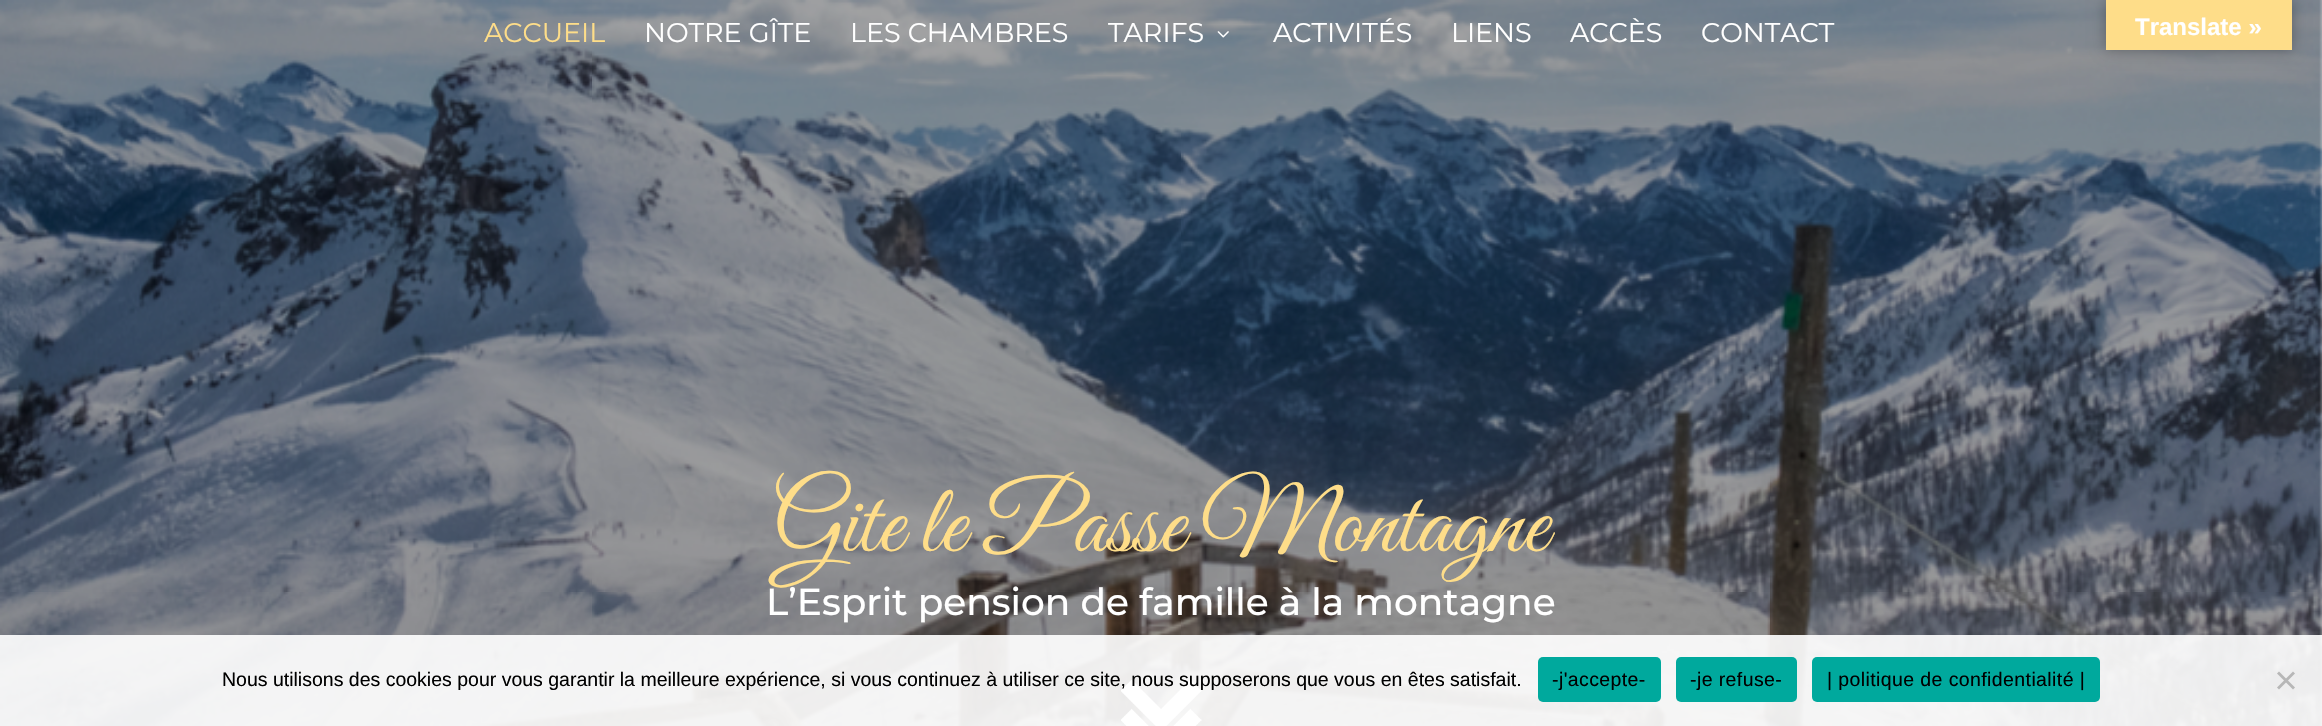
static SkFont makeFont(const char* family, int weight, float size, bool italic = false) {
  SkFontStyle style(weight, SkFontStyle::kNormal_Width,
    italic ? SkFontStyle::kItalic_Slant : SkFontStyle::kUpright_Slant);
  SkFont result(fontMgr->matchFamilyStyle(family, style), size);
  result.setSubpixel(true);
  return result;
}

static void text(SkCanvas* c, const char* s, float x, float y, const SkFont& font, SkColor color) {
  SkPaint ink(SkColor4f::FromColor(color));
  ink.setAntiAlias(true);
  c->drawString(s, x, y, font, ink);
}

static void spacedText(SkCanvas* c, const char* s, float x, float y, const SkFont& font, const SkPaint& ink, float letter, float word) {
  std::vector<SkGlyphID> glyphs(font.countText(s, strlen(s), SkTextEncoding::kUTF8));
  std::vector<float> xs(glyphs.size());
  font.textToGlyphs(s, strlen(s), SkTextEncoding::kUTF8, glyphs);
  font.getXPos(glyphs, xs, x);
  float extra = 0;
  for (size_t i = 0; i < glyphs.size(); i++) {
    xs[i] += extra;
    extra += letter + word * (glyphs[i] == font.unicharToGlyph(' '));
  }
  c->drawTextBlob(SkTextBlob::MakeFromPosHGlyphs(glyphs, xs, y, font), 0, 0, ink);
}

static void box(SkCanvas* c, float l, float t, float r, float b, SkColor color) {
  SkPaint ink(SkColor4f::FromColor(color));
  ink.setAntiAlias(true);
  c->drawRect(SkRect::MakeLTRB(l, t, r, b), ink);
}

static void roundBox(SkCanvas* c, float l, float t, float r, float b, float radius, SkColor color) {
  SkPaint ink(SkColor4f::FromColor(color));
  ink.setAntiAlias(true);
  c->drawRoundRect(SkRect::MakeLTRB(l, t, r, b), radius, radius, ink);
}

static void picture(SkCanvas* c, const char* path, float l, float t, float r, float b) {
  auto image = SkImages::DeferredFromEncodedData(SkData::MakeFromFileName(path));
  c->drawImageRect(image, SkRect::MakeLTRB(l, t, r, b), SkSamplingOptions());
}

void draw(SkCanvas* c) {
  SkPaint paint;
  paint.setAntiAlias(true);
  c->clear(0xffffffff);
  picture(c, "img_02.png", 0, 0, 2322, 726);
  SkFont face1 = makeFont("Montserrat", 400, 27);
  text(c, "ACCUEIL", 484, 42, face1, 0xfffedd89);
  text(c, "NOTRE GÎTE", 644, 42, face1, 0xffffffff);
  text(c, "LES CHAMBRES", 850, 42, face1, 0xffffffff);
  text(c, "TARIFS", 1108, 42, face1, 0xffffffff);
  picture(c, "img_01.png", 1217, 31, 1229, 38);
  text(c, "ACTIVITÉS", 1273, 42, face1, 0xffffffff);
  text(c, "LIENS", 1451, 42, face1, 0xffffffff);
  text(c, "ACCÈS", 1570, 42, face1, 0xffffffff);
  text(c, "CONTACT", 1701, 42, face1, 0xffffffff);
  SkFont face2 = makeFont("Great Vibes", 400, 97.5f);
  text(c, "Gite le Passe Montagne", 773, 551, face2, 0xfffedd89);
  SkFont face3 = makeFont("Montserrat", 500, 37.5f);
  text(c, "L’Esprit pension de famille à la montagne", 766, 615, face3, 0xffffffff);
  picture(c, "img_03.png", 1121, 680, 1202, 726);
  paint.setColor(0x4d000000);
  paint.setMaskFilter(SkMaskFilter::MakeBlur(kNormal_SkBlurStyle, 7));
  c->drawRect(SkRect::MakeLTRB(2106, 0, 2292, 50), paint);
  paint.setMaskFilter(nullptr);
  box(c, 2106, 0, 2292, 50, 0xfffedd89);
  SkFont face4 = makeFont("Liberation Sans", 700, 24);
  text(c, "Translate »", 2135, 35, face4, 0xffffffff);
  box(c, 0, 635, 2322, 726, 0xe8ffffff);
  SkFont face5 = makeFont("Liberation Sans", 400, 19.5f);
  text(c, "Nous utilisons des cookies pour vous garantir la meilleure expérience, si vous continuez à utiliser ce site, nous supposerons que vous en êtes satisfait.", 222, 686, face5, 0xff000000);
  roundBox(c, 1538, 657, 1661, 702, 5, 0xff00a99d);
  paint.setColor(0xff000000);
  spacedText(c, "-j'accepte-", 1552, 686, face5, paint, 0.4f, 0);
  roundBox(c, 1676, 657, 1797, 702, 5, 0xff00a99d);
  spacedText(c, "-je refuse-", 1690, 686, face5, paint, 0.4f, 0);
  roundBox(c, 1812, 657, 2100, 702, 5, 0xff00a99d);
  spacedText(c, "| politique de confidentialité |", 1827, 686, face5, paint, 0.4f, 0);
  paint.setColor(0xffb7b7b7);
  c->drawPath(SkPathBuilder().moveTo(2293, 671.5f).lineTo(2295, 673.5f).lineTo(2279, 689.5f).lineTo(2277, 687.5f).close().detach(), paint);
  c->drawPath(SkPathBuilder().moveTo(2277, 673.5f).lineTo(2279, 671.5f).lineTo(2295, 687.5f).lineTo(2293, 689.5f).close().detach(), paint);
}
